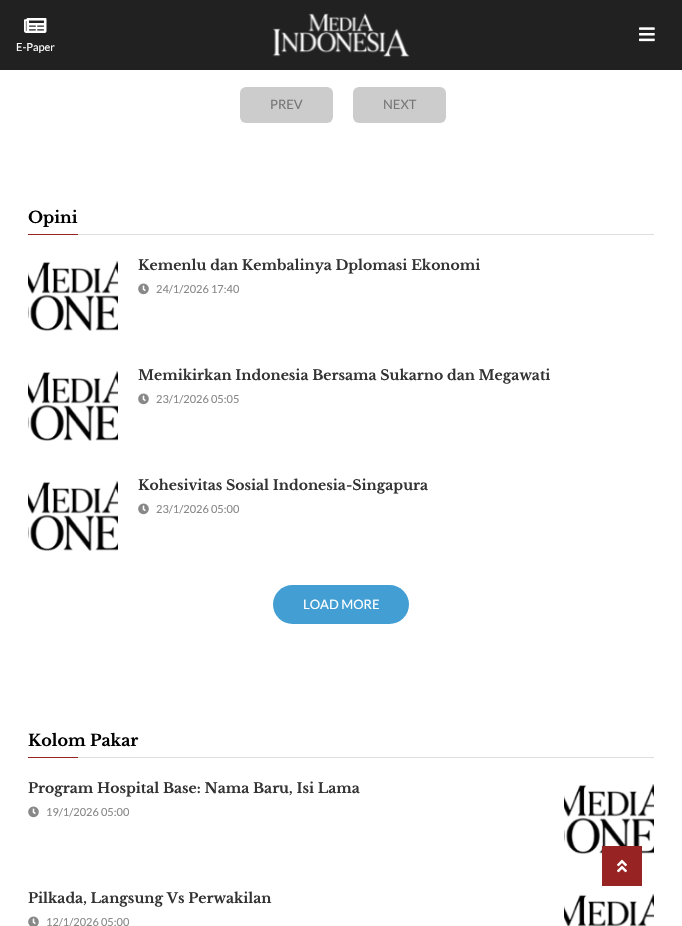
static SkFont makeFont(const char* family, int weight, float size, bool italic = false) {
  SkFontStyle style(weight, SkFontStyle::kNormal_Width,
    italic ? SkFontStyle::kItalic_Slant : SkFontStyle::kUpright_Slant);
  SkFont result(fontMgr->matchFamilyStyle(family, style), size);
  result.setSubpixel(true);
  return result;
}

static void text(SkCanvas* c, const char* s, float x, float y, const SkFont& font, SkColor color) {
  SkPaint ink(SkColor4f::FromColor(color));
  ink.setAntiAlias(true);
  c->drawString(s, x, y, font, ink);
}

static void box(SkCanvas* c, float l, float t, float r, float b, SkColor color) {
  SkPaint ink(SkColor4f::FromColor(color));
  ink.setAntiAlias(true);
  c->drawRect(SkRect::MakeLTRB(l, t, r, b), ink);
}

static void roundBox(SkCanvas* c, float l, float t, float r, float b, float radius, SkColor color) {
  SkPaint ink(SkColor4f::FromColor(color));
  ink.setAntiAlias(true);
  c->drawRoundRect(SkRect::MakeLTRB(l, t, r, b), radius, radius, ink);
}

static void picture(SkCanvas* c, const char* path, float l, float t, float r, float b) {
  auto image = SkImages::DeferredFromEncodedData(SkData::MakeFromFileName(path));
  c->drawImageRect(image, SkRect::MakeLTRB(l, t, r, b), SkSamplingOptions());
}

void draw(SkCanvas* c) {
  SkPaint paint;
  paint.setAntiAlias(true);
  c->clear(0xffffffff);
  box(c, 0, 0, 682, 70, 0xff212121);
  picture(c, "img_01.png", 272, 13, 410, 57);
  picture(c, "img_02.png", 639, 27, 655, 42);
  picture(c, "img_03.png", 24, 18, 47, 33);
  SkFont face1 = makeFont("Lato", 400, 11);
  text(c, "E-Paper", 16, 51, face1, 0xffffffff);
  roundBox(c, 240, 87, 333, 123, 6, 0xffcccccc);
  SkFont face2 = makeFont("Lato", 400, 13);
  text(c, "PREV", 270, 109, face2, 0xff777777);
  roundBox(c, 353, 87, 446, 123, 6, 0xffcccccc);
  text(c, "NEXT", 383, 109, face2, 0xff777777);
  box(c, 78, 234, 654, 235, 0xffdedede);
  SkFont face3 = makeFont("Libre Baskerville", 700, 16);
  text(c, "Opini", 28, 223, face3, 0xff000000);
  box(c, 28, 234, 78, 235, 0xff982323);
  picture(c, "img_04.png", 28, 260, 118, 331);
  SkFont face4 = makeFont("Libre Baskerville", 700, 14);
  text(c, "Kemenlu dan Kembalinya Dplomasi Ekonomi", 138, 270, face4, 0xff333333);
  picture(c, "img_05.png", 138, 283, 149, 295);
  text(c, "24/1/2026 17:40", 156, 293, face1, 0xff888888);
  picture(c, "img_06.png", 28, 370, 118, 441);
  text(c, "Memikirkan Indonesia Bersama Sukarno dan Megawati", 138, 380, face4, 0xff333333);
  picture(c, "img_05.png", 138, 393, 149, 405);
  text(c, "23/1/2026 05:05", 156, 403, face1, 0xff888888);
  picture(c, "img_07.png", 28, 480, 118, 551);
  text(c, "Kohesivitas Sosial Indonesia-Singapura", 138, 490, face4, 0xff333333);
  picture(c, "img_05.png", 138, 503, 149, 515);
  text(c, "23/1/2026 05:00", 156, 513, face1, 0xff888888);
  roundBox(c, 273, 585, 409, 624, 19.5f, 0xff439fd3);
  text(c, "LOAD MORE", 303, 609, face2, 0xffffffff);
  box(c, 78, 757, 654, 758, 0xffdedede);
  text(c, "Kolom Pakar", 28, 746, face3, 0xff000000);
  box(c, 28, 757, 78, 758, 0xff982323);
  text(c, "Program Hospital Base: Nama Baru, Isi Lama", 28, 793, face4, 0xff333333);
  picture(c, "img_05.png", 28, 806, 39, 818);
  text(c, "19/1/2026 05:00", 46, 816, face1, 0xff888888);
  picture(c, "img_08.png", 564, 783, 654, 854);
  text(c, "Pilkada, Langsung Vs Perwakilan", 28, 903, face4, 0xff333333);
  picture(c, "img_09.png", 28, 916, 39, 926);
  text(c, "12/1/2026 05:00", 46, 926, face1, 0xff888888);
  picture(c, "img_10.png", 564, 893, 654, 926);
  box(c, 602, 846, 642, 886, 0xff982323);
  picture(c, "img_11.png", 617, 859, 627, 873);
}
